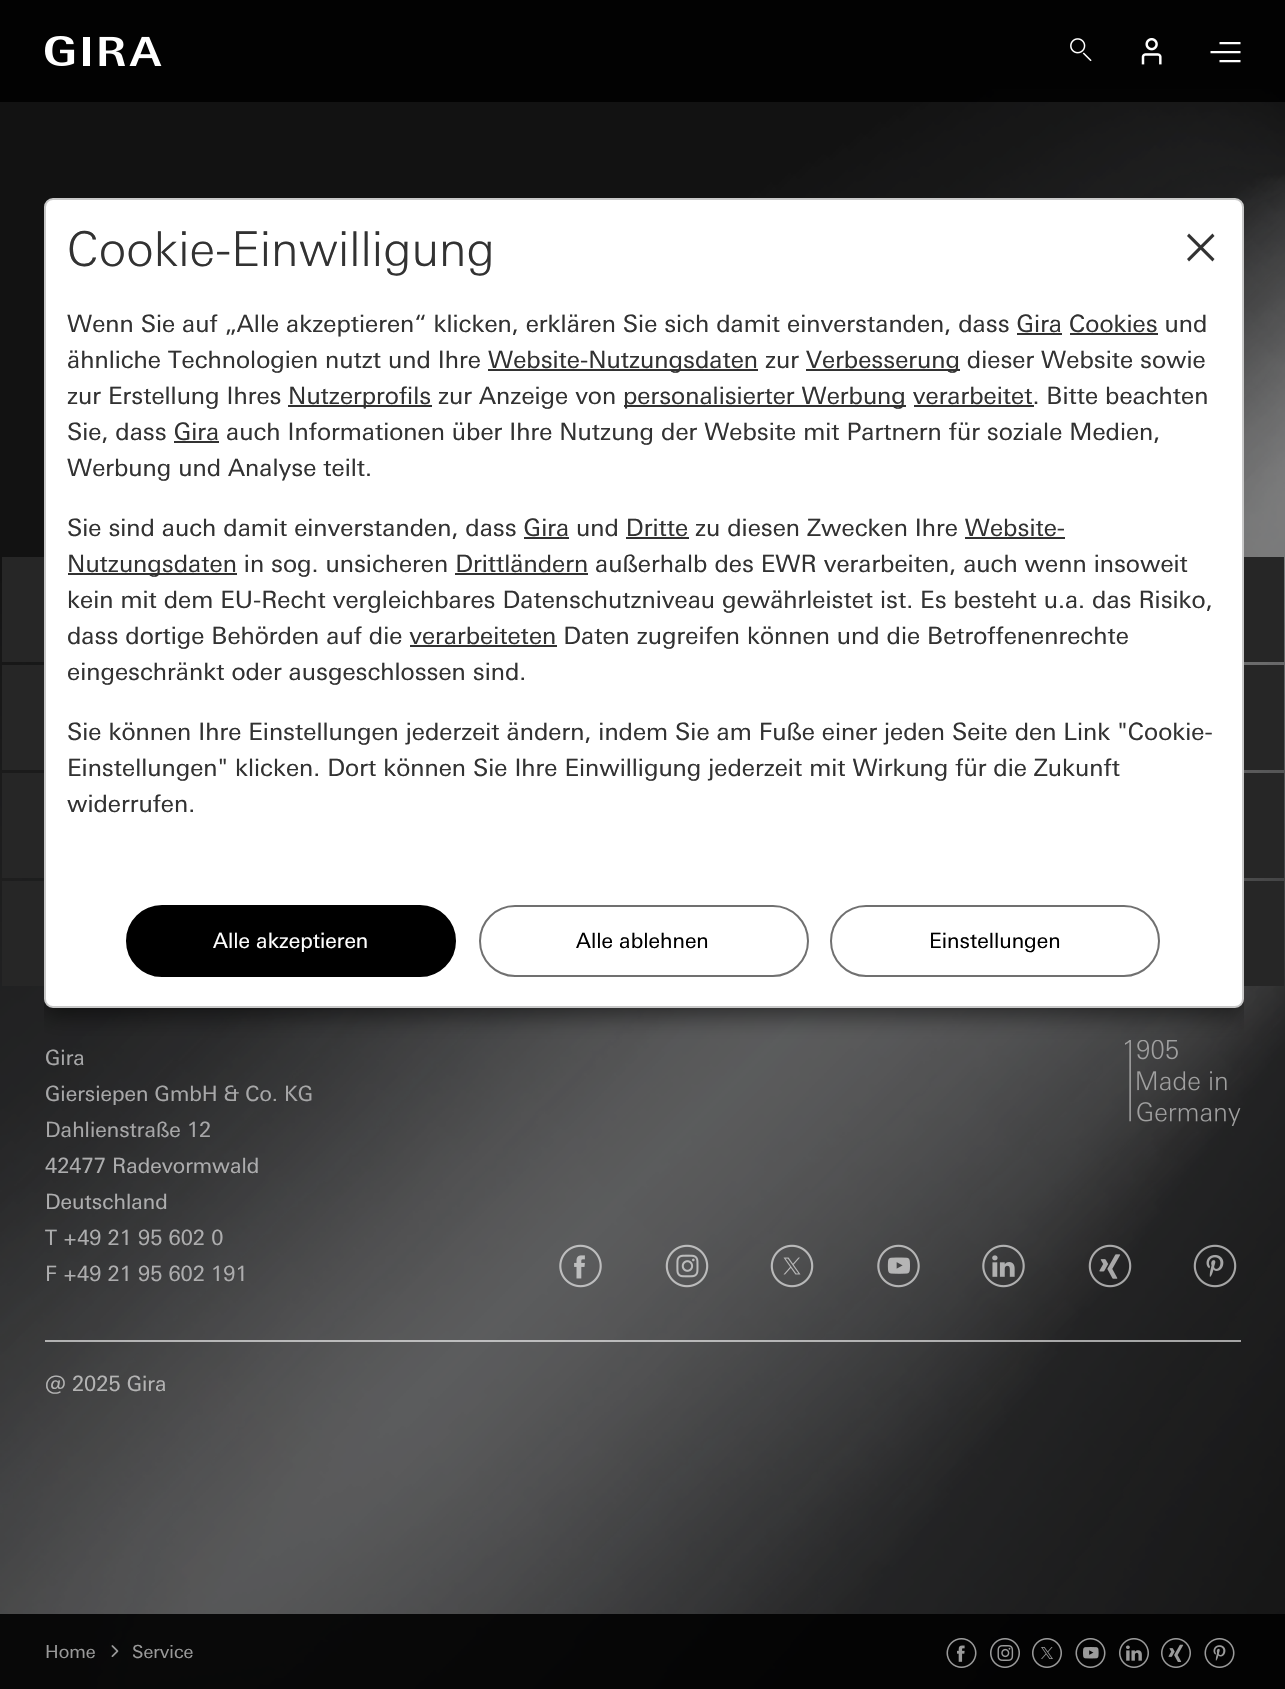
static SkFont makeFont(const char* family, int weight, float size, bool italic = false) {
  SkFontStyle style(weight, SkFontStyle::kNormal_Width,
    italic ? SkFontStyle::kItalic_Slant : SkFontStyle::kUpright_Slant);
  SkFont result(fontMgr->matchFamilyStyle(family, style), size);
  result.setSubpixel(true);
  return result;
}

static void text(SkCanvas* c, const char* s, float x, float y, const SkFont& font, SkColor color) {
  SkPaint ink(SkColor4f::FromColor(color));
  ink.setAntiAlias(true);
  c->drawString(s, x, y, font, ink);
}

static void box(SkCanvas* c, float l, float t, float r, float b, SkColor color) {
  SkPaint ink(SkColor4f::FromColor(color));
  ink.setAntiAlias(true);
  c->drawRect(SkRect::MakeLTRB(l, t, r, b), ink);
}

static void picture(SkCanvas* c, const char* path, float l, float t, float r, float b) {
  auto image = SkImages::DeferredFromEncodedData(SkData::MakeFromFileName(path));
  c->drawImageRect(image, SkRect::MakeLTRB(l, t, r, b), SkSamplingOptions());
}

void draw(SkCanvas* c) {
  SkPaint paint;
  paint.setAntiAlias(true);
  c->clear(0xff121212);
  picture(c, "img_05.png", 0, 89, 1285, 1689);
  box(c, 0, 0, 1285, 102, 0xe6000000);
  picture(c, "img_01.png", 45, 36, 162, 66);
  picture(c, "img_02.png", 1070, 38, 1092, 62);
  picture(c, "img_03.png", 1141, 38, 1162, 65);
  picture(c, "img_04.png", 1210, 42, 1241, 63);
  box(c, 2, 557, 44, 662, 0xff262626);
  box(c, 1244, 557, 1284, 662, 0xff262626);
  box(c, 2, 665, 44, 770, 0xff262626);
  box(c, 1244, 665, 1284, 770, 0xff262626);
  box(c, 2, 773, 44, 878, 0xff262626);
  box(c, 1244, 773, 1284, 878, 0xff262626);
  box(c, 2, 881, 44, 986, 0xff262626);
  box(c, 1244, 881, 1284, 986, 0xff262626);
  picture(c, "img_06.png", 1125, 1040, 1241, 1126);
  c->save();
  c->clipPath(SkPathBuilder().moveTo(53, 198).lineTo(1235, 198).cubicTo(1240, 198, 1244, 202, 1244, 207).lineTo(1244, 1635).cubicTo(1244, 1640, 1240, 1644, 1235, 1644).lineTo(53, 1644).cubicTo(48, 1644, 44, 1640, 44, 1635).lineTo(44, 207).cubicTo(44, 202, 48, 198, 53, 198).close().detach(), true);
  paint.setColor(0x80000000);
  paint.setMaskFilter(SkMaskFilter::MakeBlur(kNormal_SkBlurStyle, 11));
  c->drawRoundRect(SkRect::MakeLTRB(44, 206, 1244, 1016), 9, 9, paint);
  paint.setMaskFilter(nullptr);
  c->restore();
  paint.setColor(0xffffffff);
  c->drawRoundRect(SkRect::MakeLTRB(45, 199, 1243, 1007), 8, 8, paint);
  paint.setStyle(SkPaint::kStroke_Style);
  paint.setStrokeWidth(2);
  paint.setColor(0xffc8c8c8);
  c->drawRoundRect(SkRect::MakeLTRB(45, 199, 1243, 1007), 8, 8, paint);
  SkFont face1 = makeFont("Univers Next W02", 300, 48);
  text(c, "Cookie-Einwilligung", 67, 266, face1, 0xff323232);
  paint.setStyle(SkPaint::kFill_Style);
  paint.setColor(0xff323232);
  c->drawPath(SkPathBuilder().moveTo(1189, 233.5f).lineTo(1214.5f, 259).lineTo(1212.5f, 261.5f).lineTo(1187, 236).close().detach(), paint);
  c->drawPath(SkPathBuilder().moveTo(1187, 259).lineTo(1212.5f, 233.5f).lineTo(1214.5f, 236).lineTo(1189, 261.5f).close().detach(), paint);
  SkFont face2 = makeFont("Univers Next W02", 400, 24);
  text(c, "Wenn Sie auf „Alle akzeptieren“ klicken, erklären Sie sich damit einverstanden, dass Gira Cookies und", 67, 332, face2, 0xff323232);
  box(c, 1017, 333, 1062, 335, 0xff323232);
  box(c, 1070, 333, 1158, 335, 0xff323232);
  text(c, "ähnliche Technologien nutzt und Ihre", 67, 368, face2, 0xff323232);
  box(c, 488, 369, 758, 371, 0xff323232);
  text(c, "Website-Nutzungsdaten zur", 488, 368, face2, 0xff323232);
  box(c, 806, 369, 960, 371, 0xff323232);
  text(c, "Verbesserung dieser Website sowie", 806, 368, face2, 0xff323232);
  text(c, "zur Erstellung Ihres", 67, 404, face2, 0xff323232);
  box(c, 288, 405, 432, 407, 0xff323232);
  text(c, "Nutzerprofils zur Anzeige von", 288, 404, face2, 0xff323232);
  box(c, 624, 405, 906, 407, 0xff323232);
  text(c, "personalisierter Werbung verarbeitet. Bitte beachten", 623, 404, face2, 0xff323232);
  box(c, 914, 405, 1034, 407, 0xff323232);
  text(c, "Sie, dass Gira auch Informationen über Ihre Nutzung der Website mit Partnern für soziale Medien,", 67, 440, face2, 0xff323232);
  box(c, 174, 441, 219, 443, 0xff323232);
  text(c, "Werbung und Analyse teilt.", 67, 476, face2, 0xff323232);
  text(c, "Sie sind auch damit einverstanden, dass Gira und Dritte zu diesen Zwecken Ihre Website-", 67, 536, face2, 0xff323232);
  box(c, 524, 537, 569, 539, 0xff323232);
  box(c, 626, 537, 689, 539, 0xff323232);
  box(c, 68, 573, 237, 575, 0xff323232);
  text(c, "Nutzungsdaten in sog. unsicheren Drittländern außerhalb des EWR verarbeiten, auch wenn insoweit", 67, 572, face2, 0xff323232);
  box(c, 965, 537, 1065, 539, 0xff323232);
  box(c, 455, 573, 588, 575, 0xff323232);
  text(c, "kein mit dem EU-Recht vergleichbares Datenschutzniveau gewährleistet ist. Es besteht u.a. das Risiko,", 67, 608, face2, 0xff323232);
  text(c, "dass dortige Behörden auf die verarbeiteten Daten zugreifen können und die Betroffenenrechte", 67, 644, face2, 0xff323232);
  box(c, 410, 645, 557, 647, 0xff323232);
  text(c, "eingeschränkt oder ausgeschlossen sind.", 67, 680, face2, 0xff323232);
  text(c, "Sie können Ihre Einstellungen jederzeit ändern, indem Sie am Fuße einer jeden Seite den Link \"Cookie-", 67, 740, face2, 0xff323232);
  text(c, "Einstellungen\" klicken. Dort können Sie Ihre Einwilligung jederzeit mit Wirkung für die Zukunft", 67, 776, face2, 0xff323232);
  text(c, "widerrufen.", 67, 812, face2, 0xff323232);
  paint.setColor(0xff000000);
  c->drawRoundRect(SkRect::MakeLTRB(127, 906, 455, 976), 35, 35, paint);
  paint.setStyle(SkPaint::kStroke_Style);
  c->drawRoundRect(SkRect::MakeLTRB(127, 906, 455, 976), 35, 35, paint);
  SkFont face3 = makeFont("Univers Next W02", 400, 21);
  text(c, "Alle akzeptieren", 213, 948, face3, 0xffffffff);
  paint.setColor(0xff707070);
  c->drawRoundRect(SkRect::MakeLTRB(480, 906, 808, 976), 35, 35, paint);
  text(c, "Alle ablehnen", 576, 948, face3, 0xff000000);
  c->drawRoundRect(SkRect::MakeLTRB(831, 906, 1159, 976), 35, 35, paint);
  text(c, "Einstellungen", 929, 948, face3, 0xff000000);
  text(c, "Gira", 45, 1065, face3, 0xffa7a7a8);
  text(c, "Giersiepen GmbH & Co. KG", 45, 1101, face3, 0xffa7a7a8);
  text(c, "Dahlienstraße 12", 45, 1137, face3, 0xffa7a7a8);
  text(c, "42477 Radevormwald", 45, 1173, face3, 0xffadadae);
  text(c, "Deutschland", 45, 1209, face3, 0xffadadae);
  text(c, "T +49 21 95 602 0", 45, 1245, face3, 0xffadadae);
  text(c, "F +49 21 95 602 191", 45, 1281, face3, 0xffadadae);
  picture(c, "img_07.png", 559, 1244, 602, 1288);
  picture(c, "img_08.png", 665, 1244, 709, 1288);
  picture(c, "img_09.png", 770, 1244, 814, 1288);
  picture(c, "img_10.png", 877, 1244, 920, 1288);
  picture(c, "img_11.png", 982, 1244, 1025, 1288);
  picture(c, "img_12.png", 1088, 1244, 1132, 1288);
  picture(c, "img_13.png", 1193, 1244, 1237, 1288);
  box(c, 45, 1340, 1241, 1342, 0x99ffffff);
  text(c, "@ 2025 Gira", 45, 1391, face3, 0xffb4b4b4);
  box(c, 0, 1614, 1285, 1689, 0xe6000000);
  SkFont face4 = makeFont("Univers Next W02", 400, 18);
  text(c, "Home", 45, 1658, face4, 0xff999999);
  picture(c, "img_14.png", 111, 1645, 119, 1657);
  text(c, "Service", 132, 1658, face4, 0xff999999);
  picture(c, "img_15.png", 946, 1638, 977, 1668);
  picture(c, "img_16.png", 990, 1638, 1020, 1668);
  picture(c, "img_17.png", 1032, 1638, 1062, 1668);
  picture(c, "img_18.png", 1075, 1638, 1106, 1668);
  picture(c, "img_19.png", 1119, 1638, 1149, 1668);
  picture(c, "img_20.png", 1161, 1638, 1191, 1668);
  picture(c, "img_21.png", 1204, 1638, 1235, 1668);
}
